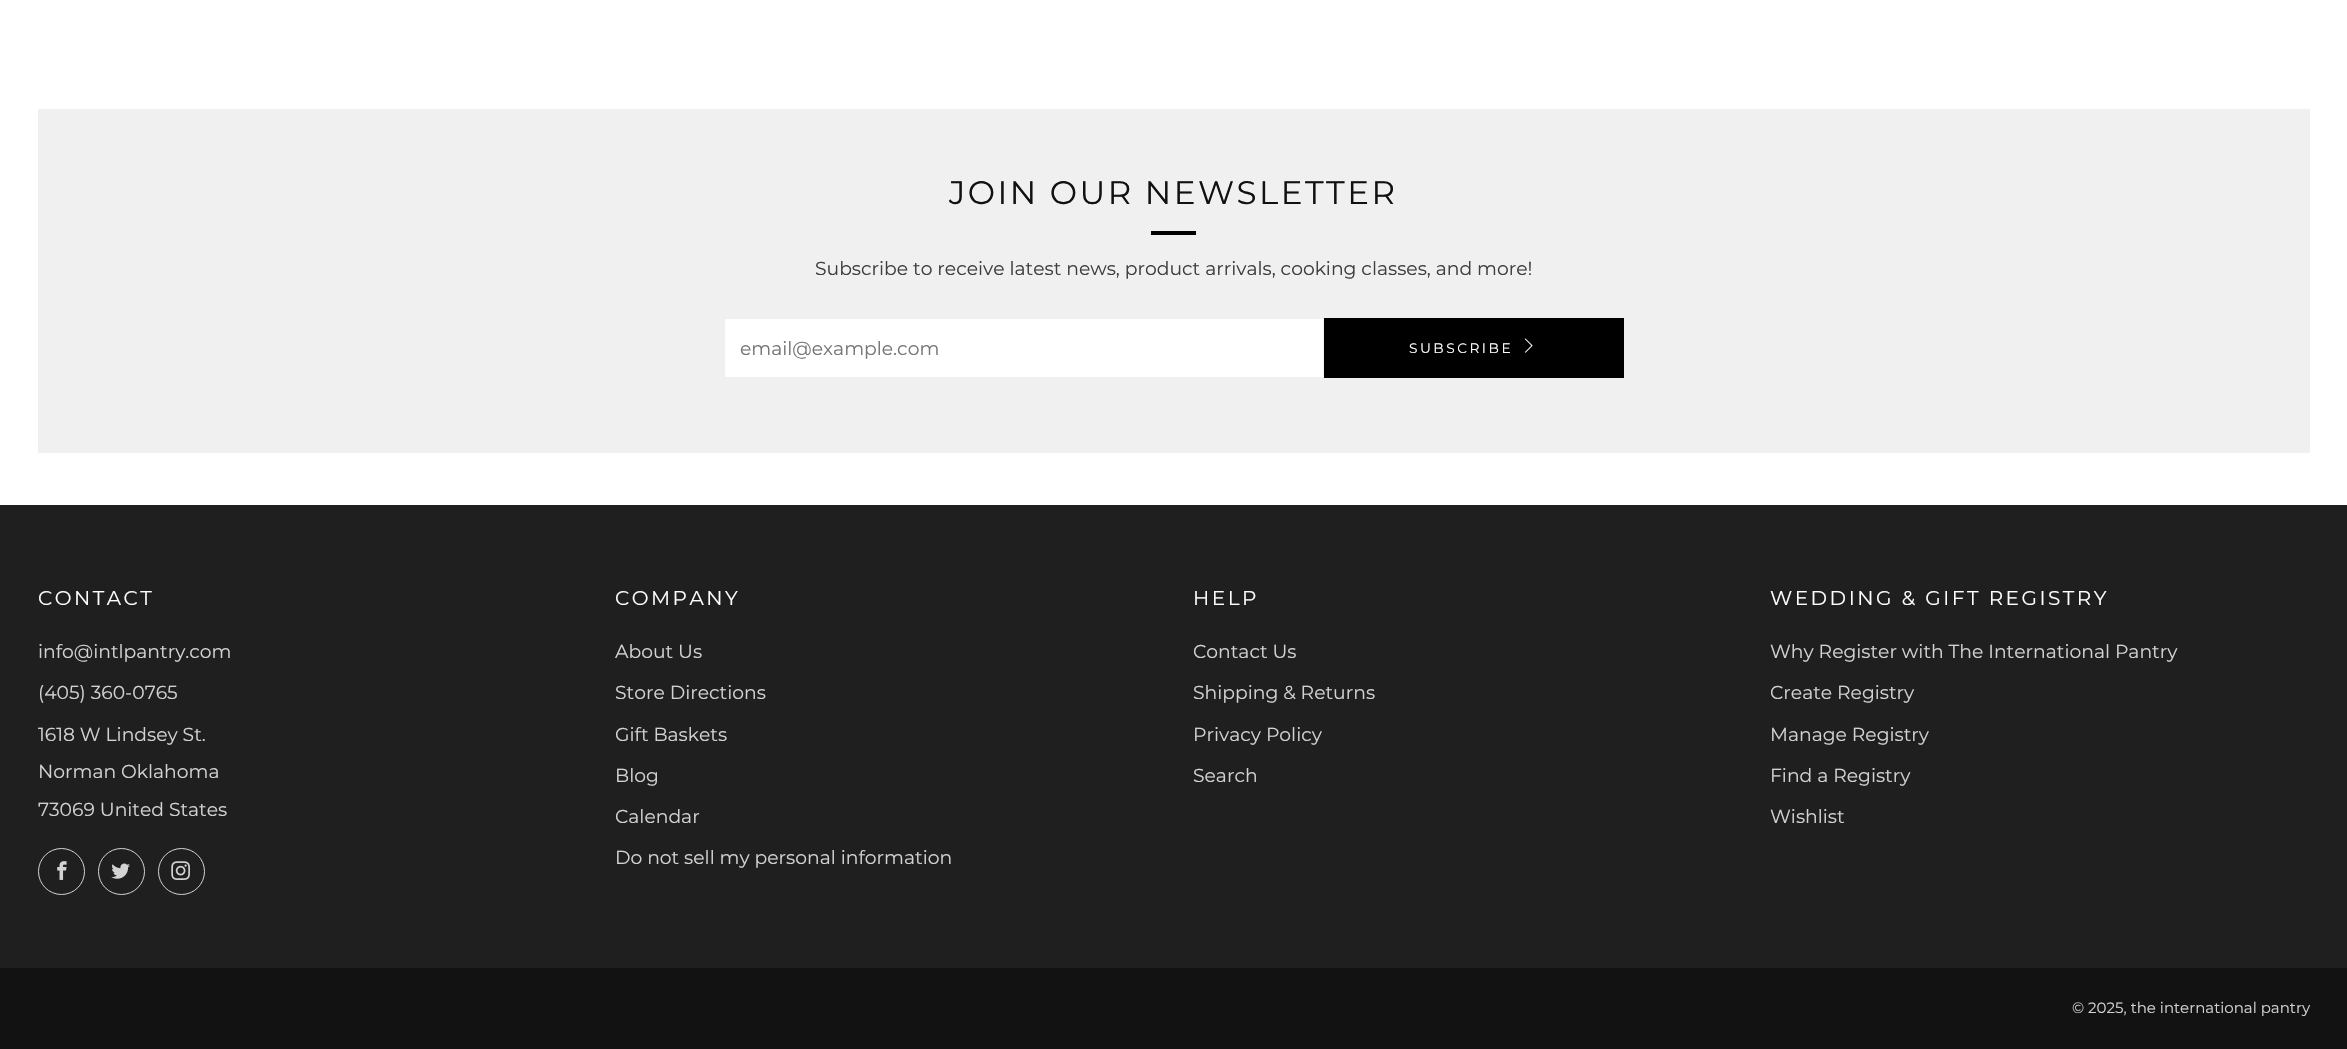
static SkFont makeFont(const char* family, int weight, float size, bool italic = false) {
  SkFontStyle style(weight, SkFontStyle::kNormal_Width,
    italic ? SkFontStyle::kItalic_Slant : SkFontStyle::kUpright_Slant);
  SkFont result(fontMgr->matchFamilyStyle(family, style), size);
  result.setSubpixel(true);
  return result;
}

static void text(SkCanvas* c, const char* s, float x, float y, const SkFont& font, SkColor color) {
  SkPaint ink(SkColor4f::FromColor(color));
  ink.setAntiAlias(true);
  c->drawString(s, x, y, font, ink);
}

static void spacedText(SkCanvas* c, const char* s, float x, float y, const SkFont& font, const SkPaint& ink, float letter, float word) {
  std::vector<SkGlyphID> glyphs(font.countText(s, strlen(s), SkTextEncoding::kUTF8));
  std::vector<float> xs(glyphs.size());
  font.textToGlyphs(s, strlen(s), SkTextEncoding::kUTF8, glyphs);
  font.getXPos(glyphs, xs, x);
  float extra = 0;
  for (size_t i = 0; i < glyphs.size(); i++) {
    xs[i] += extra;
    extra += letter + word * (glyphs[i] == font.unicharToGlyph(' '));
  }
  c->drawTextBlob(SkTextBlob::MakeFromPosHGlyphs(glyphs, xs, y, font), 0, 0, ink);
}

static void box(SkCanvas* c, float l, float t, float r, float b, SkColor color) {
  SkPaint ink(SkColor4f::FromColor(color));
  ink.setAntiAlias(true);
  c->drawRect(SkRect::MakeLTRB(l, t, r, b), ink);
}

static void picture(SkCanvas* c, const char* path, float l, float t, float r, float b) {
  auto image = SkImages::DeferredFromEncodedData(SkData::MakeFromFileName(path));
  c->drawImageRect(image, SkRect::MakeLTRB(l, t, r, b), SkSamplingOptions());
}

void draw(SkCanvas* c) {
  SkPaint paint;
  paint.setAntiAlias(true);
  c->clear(0xffffffff);
  box(c, 38, 109, 2310, 453, 0xfff0f0f0);
  SkFont face1 = makeFont("Montserrat", 400, 32.5f);
  paint.setColor(0xff111111);
  spacedText(c, "JOIN OUR NEWSLETTER", 949, 204, face1, paint, 2.5f, 0);
  box(c, 1151, 231, 1196, 235, 0xff000000);
  SkFont face2 = makeFont("Montserrat", 400, 18.75f);
  text(c, "Subscribe to receive latest news, product arrivals, cooking classes, and more!", 815, 275, face2, 0xff3e3e3e);
  box(c, 725, 319, 1323, 377, 0xffffffff);
  text(c, "email@example.com", 740, 355, face2, 0xff757575);
  box(c, 1324, 318, 1624, 378, 0xff000000);
  SkFont face3 = makeFont("Montserrat", 400, 13.75f);
  paint.setColor(0xffffffff);
  spacedText(c, "SUBSCRIBE", 1409, 353, face3, paint, 2.5f, 0);
  picture(c, "img_01.png", 1524, 338, 1533, 353);
  box(c, 0, 505, 2347, 968, 0xff201f1f);
  SkFont face4 = makeFont("Montserrat", 400, 20);
  spacedText(c, "CONTACT", 38, 605, face4, paint, 2.5f, 0);
  text(c, "info@intlpantry.com", 38, 658, face2, 0xffd2d2d2);
  text(c, "(405) 360-0765", 38, 699, face2, 0xffd2d2d2);
  text(c, "1618 W Lindsey St.", 38, 741, face2, 0xffd2d2d2);
  text(c, "Norman Oklahoma", 38, 778, face2, 0xffd2d2d2);
  text(c, "73069 United States", 38, 816, face2, 0xffd2d2d2);
  paint.setStyle(SkPaint::kStroke_Style);
  paint.setStrokeWidth(1);
  paint.setColor(0xffd2d2d2);
  c->drawCircle(61.5f, 871.5f, 23, paint);
  picture(c, "img_02.png", 57, 861, 67, 880);
  c->drawCircle(121.5f, 871.5f, 23, paint);
  picture(c, "img_03.png", 111, 863, 130, 879);
  c->drawCircle(181.5f, 871.5f, 23, paint);
  picture(c, "img_04.png", 171, 861, 190, 880);
  paint.setStyle(SkPaint::kFill_Style);
  paint.setColor(0xffffffff);
  spacedText(c, "COMPANY", 615, 605, face4, paint, 2.5f, 0);
  text(c, "About Us", 615, 658, face2, 0xffd2d2d2);
  text(c, "Store Directions", 615, 699, face2, 0xffd2d2d2);
  text(c, "Gift Baskets", 615, 741, face2, 0xffd2d2d2);
  text(c, "Blog", 615, 782, face2, 0xffd2d2d2);
  text(c, "Calendar", 615, 823, face2, 0xffd2d2d2);
  text(c, "Do not sell my personal information", 615, 864, face2, 0xffd2d2d2);
  spacedText(c, "HELP", 1193, 605, face4, paint, 2.5f, 0);
  text(c, "Contact Us", 1193, 658, face2, 0xffd2d2d2);
  text(c, "Shipping & Returns", 1193, 699, face2, 0xffd2d2d2);
  text(c, "Privacy Policy", 1193, 741, face2, 0xffd2d2d2);
  text(c, "Search", 1193, 782, face2, 0xffd2d2d2);
  spacedText(c, "WEDDING & GIFT REGISTRY", 1770, 605, face4, paint, 2.5f, 0);
  text(c, "Why Register with The International Pantry", 1770, 658, face2, 0xffd2d2d2);
  text(c, "Create Registry", 1770, 699, face2, 0xffd2d2d2);
  text(c, "Manage Registry", 1770, 741, face2, 0xffd2d2d2);
  text(c, "Find a Registry", 1770, 782, face2, 0xffd2d2d2);
  text(c, "Wishlist", 1770, 823, face2, 0xffd2d2d2);
  box(c, 0, 968, 2347, 1049, 0xff131212);
  SkFont face5 = makeFont("Montserrat", 400, 15);
  text(c, "© 2025, the international pantry", 2072, 1013, face5, 0xffd2d2d2);
}
